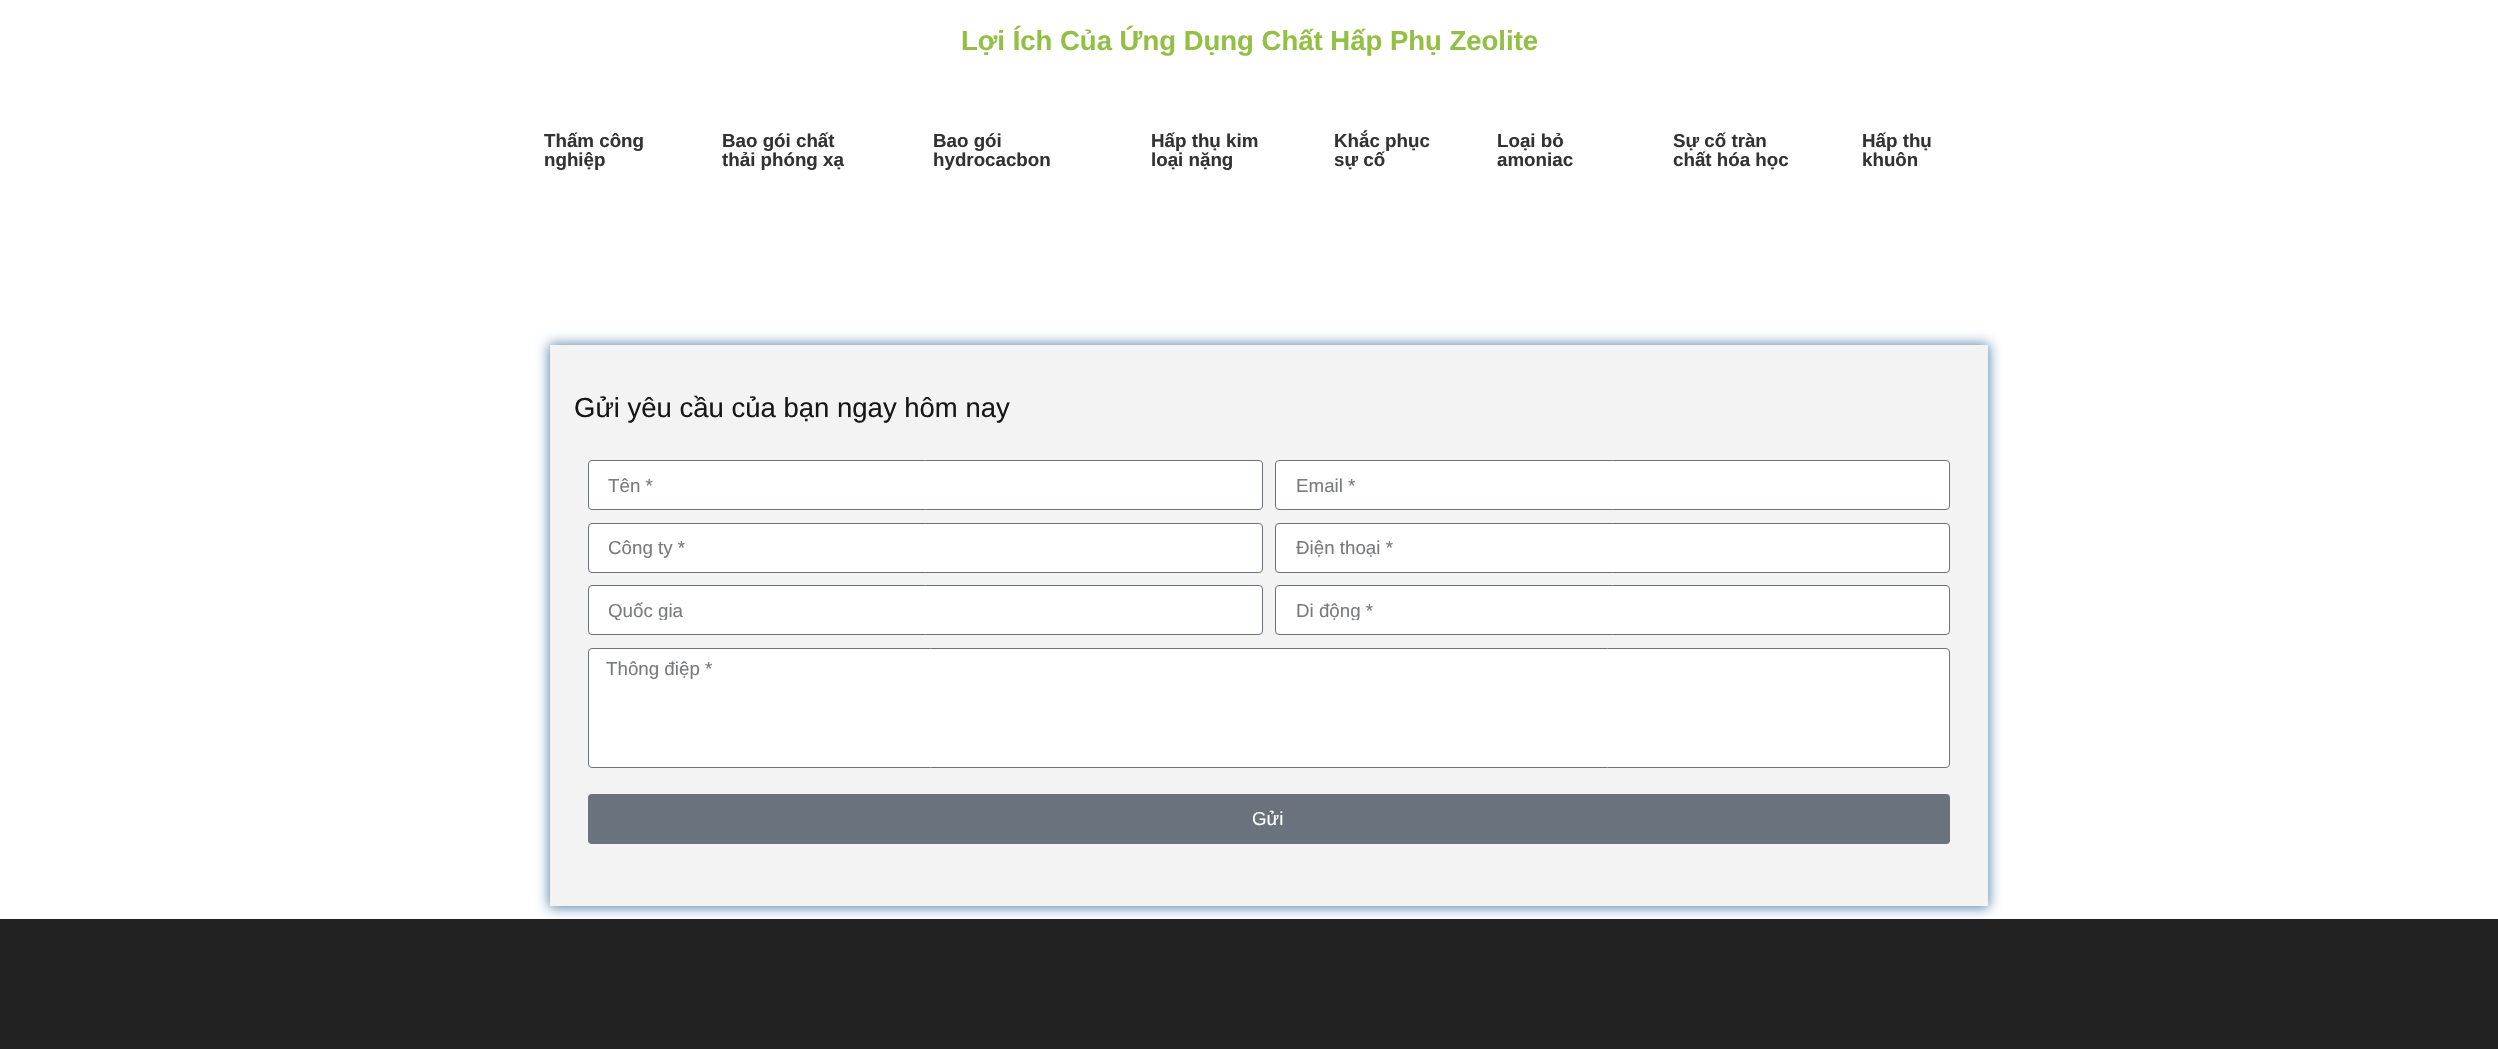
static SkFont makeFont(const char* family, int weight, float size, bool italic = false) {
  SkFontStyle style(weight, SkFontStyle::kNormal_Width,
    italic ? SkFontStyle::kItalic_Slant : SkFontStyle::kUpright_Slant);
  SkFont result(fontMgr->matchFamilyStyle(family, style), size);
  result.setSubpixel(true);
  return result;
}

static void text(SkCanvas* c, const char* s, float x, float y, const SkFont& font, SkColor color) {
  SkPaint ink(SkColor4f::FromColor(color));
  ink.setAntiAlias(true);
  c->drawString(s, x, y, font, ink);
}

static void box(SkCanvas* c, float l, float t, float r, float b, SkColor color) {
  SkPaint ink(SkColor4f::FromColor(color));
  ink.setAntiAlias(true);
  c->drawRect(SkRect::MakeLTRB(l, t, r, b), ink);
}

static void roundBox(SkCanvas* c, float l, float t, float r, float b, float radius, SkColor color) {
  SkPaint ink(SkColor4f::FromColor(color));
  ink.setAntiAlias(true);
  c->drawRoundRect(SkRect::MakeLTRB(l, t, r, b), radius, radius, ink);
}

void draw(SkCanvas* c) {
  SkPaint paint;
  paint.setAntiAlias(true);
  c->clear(0xffffffff);
  SkFont face1 = makeFont("Liberation Sans", 700, 27.5f);
  text(c, "Lợi Ích Của Ứng Dụng Chất Hấp Phụ Zeolite", 961, 50, face1, 0xff94bf45);
  SkFont face2 = makeFont("Liberation Sans", 700, 18.75f);
  text(c, "Thấm công", 544, 147, face2, 0xff333333);
  text(c, "nghiệp", 544, 166, face2, 0xff333333);
  text(c, "Bao gói chất", 722, 147, face2, 0xff333333);
  text(c, "thải phóng xạ", 722, 166, face2, 0xff333333);
  text(c, "Bao gói", 933, 147, face2, 0xff333333);
  text(c, "hydrocacbon", 933, 166, face2, 0xff333333);
  text(c, "Hấp thụ kim", 1151, 147, face2, 0xff333333);
  text(c, "loại nặng", 1151, 166, face2, 0xff333333);
  text(c, "Khắc phục", 1334, 147, face2, 0xff333333);
  text(c, "sự cố", 1334, 166, face2, 0xff333333);
  text(c, "Loại bỏ", 1497, 147, face2, 0xff333333);
  text(c, "amoniac", 1497, 166, face2, 0xff333333);
  text(c, "Sự cố tràn", 1673, 147, face2, 0xff333333);
  text(c, "chất hóa học", 1673, 166, face2, 0xff333333);
  text(c, "Hấp thụ", 1862, 147, face2, 0xff333333);
  text(c, "khuôn", 1862, 166, face2, 0xff333333);
  paint.setColor(0xb819588d);
  paint.setMaskFilter(SkMaskFilter::MakeBlur(kNormal_SkBlurStyle, 6));
  c->drawRect(SkRect::MakeLTRB(549, 344, 1989, 908), paint);
  paint.setMaskFilter(nullptr);
  box(c, 550, 345, 1988, 906, 0xfff3f3f3);
  SkFont face3 = makeFont("Liberation Sans", 400, 27.5f);
  text(c, "Gửi yêu cầu của bạn ngay hôm nay", 574, 417, face3, 0xff171717);
  paint.setColor(0xffffffff);
  c->drawRoundRect(SkRect::MakeLTRB(588.5f, 460.5f, 1262.5f, 509.5f), 3.5f, 3.5f, paint);
  paint.setStyle(SkPaint::kStroke_Style);
  paint.setStrokeWidth(1);
  paint.setColor(0xff69727d);
  c->drawRoundRect(SkRect::MakeLTRB(588.5f, 460.5f, 1262.5f, 509.5f), 3.5f, 3.5f, paint);
  SkFont face4 = makeFont("Liberation Sans", 400, 18.75f);
  text(c, "Tên *", 608, 492, face4, 0xff797a7c);
  paint.setStyle(SkPaint::kFill_Style);
  paint.setColor(0xffffffff);
  c->drawRoundRect(SkRect::MakeLTRB(1275.5f, 460.5f, 1949.5f, 509.5f), 3.5f, 3.5f, paint);
  paint.setStyle(SkPaint::kStroke_Style);
  paint.setColor(0xff69727d);
  c->drawRoundRect(SkRect::MakeLTRB(1275.5f, 460.5f, 1949.5f, 509.5f), 3.5f, 3.5f, paint);
  text(c, "Email *", 1296, 492, face4, 0xff797a7c);
  paint.setStyle(SkPaint::kFill_Style);
  paint.setColor(0xffffffff);
  c->drawRoundRect(SkRect::MakeLTRB(588.5f, 523.5f, 1262.5f, 572.5f), 3.5f, 3.5f, paint);
  paint.setStyle(SkPaint::kStroke_Style);
  paint.setColor(0xff69727d);
  c->drawRoundRect(SkRect::MakeLTRB(588.5f, 523.5f, 1262.5f, 572.5f), 3.5f, 3.5f, paint);
  text(c, "Công ty *", 608, 554, face4, 0xff797a7c);
  paint.setStyle(SkPaint::kFill_Style);
  paint.setColor(0xffffffff);
  c->drawRoundRect(SkRect::MakeLTRB(1275.5f, 523.5f, 1949.5f, 572.5f), 3.5f, 3.5f, paint);
  paint.setStyle(SkPaint::kStroke_Style);
  paint.setColor(0xff69727d);
  c->drawRoundRect(SkRect::MakeLTRB(1275.5f, 523.5f, 1949.5f, 572.5f), 3.5f, 3.5f, paint);
  text(c, "Điện thoại *", 1296, 554, face4, 0xff797a7c);
  paint.setStyle(SkPaint::kFill_Style);
  paint.setColor(0xffffffff);
  c->drawRoundRect(SkRect::MakeLTRB(588.5f, 585.5f, 1262.5f, 634.5f), 3.5f, 3.5f, paint);
  paint.setStyle(SkPaint::kStroke_Style);
  paint.setColor(0xff69727d);
  c->drawRoundRect(SkRect::MakeLTRB(588.5f, 585.5f, 1262.5f, 634.5f), 3.5f, 3.5f, paint);
  c->save();
  c->clipRect(SkRect::MakeLTRB(609, 599, 1241, 620));
  text(c, "Quốc gia", 608, 617, face4, 0xff797a7c);
  c->restore();
  paint.setStyle(SkPaint::kFill_Style);
  paint.setColor(0xffffffff);
  c->drawRoundRect(SkRect::MakeLTRB(1275.5f, 585.5f, 1949.5f, 634.5f), 3.5f, 3.5f, paint);
  paint.setStyle(SkPaint::kStroke_Style);
  paint.setColor(0xff69727d);
  c->drawRoundRect(SkRect::MakeLTRB(1275.5f, 585.5f, 1949.5f, 634.5f), 3.5f, 3.5f, paint);
  c->save();
  c->clipRect(SkRect::MakeLTRB(1296, 599, 1929, 620));
  text(c, "Di động *", 1296, 617, face4, 0xff797a7c);
  c->restore();
  paint.setStyle(SkPaint::kFill_Style);
  paint.setColor(0xffffffff);
  c->drawRoundRect(SkRect::MakeLTRB(588.5f, 648.5f, 1949.5f, 767.5f), 3.5f, 3.5f, paint);
  paint.setStyle(SkPaint::kStroke_Style);
  paint.setColor(0xff69727d);
  c->drawRoundRect(SkRect::MakeLTRB(588.5f, 648.5f, 1949.5f, 767.5f), 3.5f, 3.5f, paint);
  text(c, "Thông điệp *", 606, 675, face4, 0xff797a7c);
  roundBox(c, 588, 794, 1950, 844, 4, 0xff69727d);
  text(c, "Gửi", 1252, 825, face4, 0xffffffff);
  box(c, 0, 919, 2498, 1049, 0xff222222);
}
